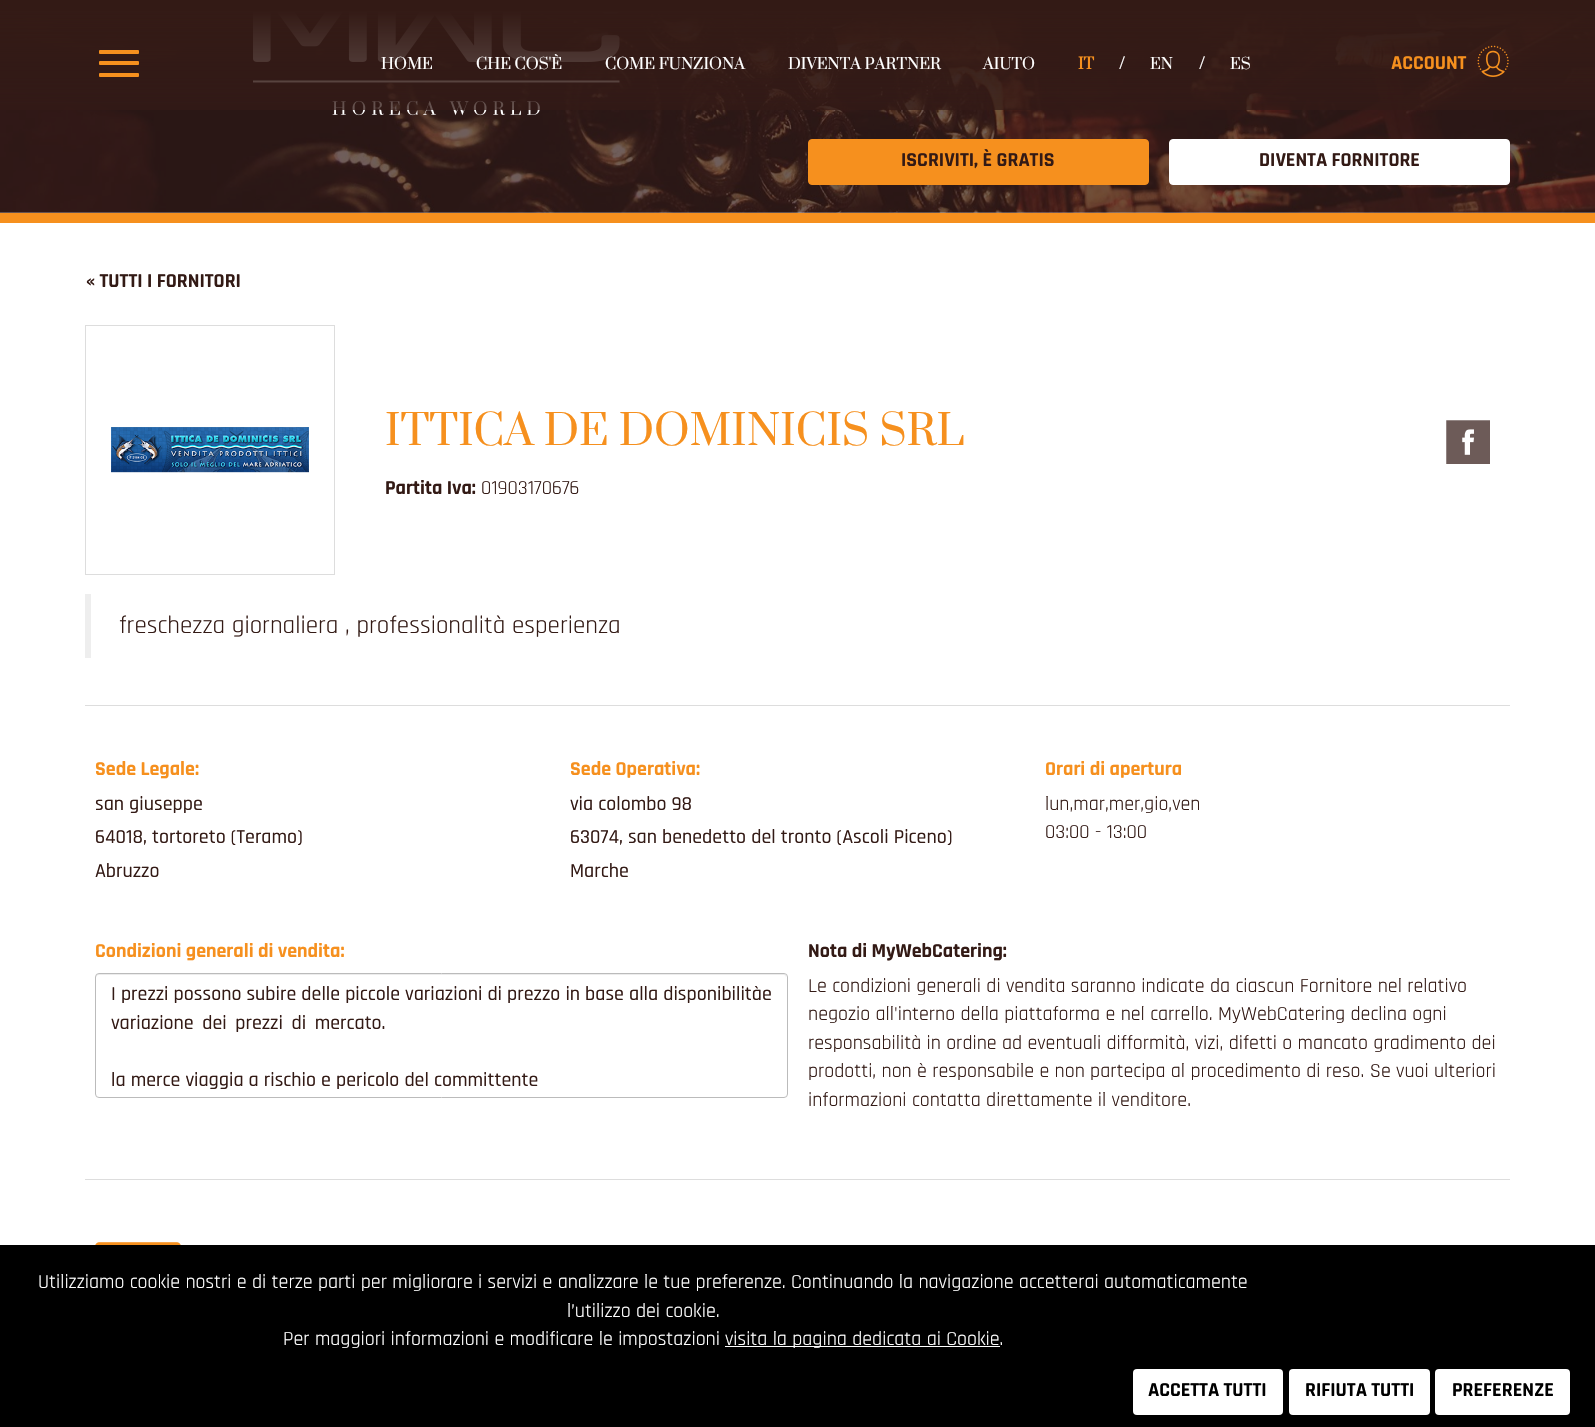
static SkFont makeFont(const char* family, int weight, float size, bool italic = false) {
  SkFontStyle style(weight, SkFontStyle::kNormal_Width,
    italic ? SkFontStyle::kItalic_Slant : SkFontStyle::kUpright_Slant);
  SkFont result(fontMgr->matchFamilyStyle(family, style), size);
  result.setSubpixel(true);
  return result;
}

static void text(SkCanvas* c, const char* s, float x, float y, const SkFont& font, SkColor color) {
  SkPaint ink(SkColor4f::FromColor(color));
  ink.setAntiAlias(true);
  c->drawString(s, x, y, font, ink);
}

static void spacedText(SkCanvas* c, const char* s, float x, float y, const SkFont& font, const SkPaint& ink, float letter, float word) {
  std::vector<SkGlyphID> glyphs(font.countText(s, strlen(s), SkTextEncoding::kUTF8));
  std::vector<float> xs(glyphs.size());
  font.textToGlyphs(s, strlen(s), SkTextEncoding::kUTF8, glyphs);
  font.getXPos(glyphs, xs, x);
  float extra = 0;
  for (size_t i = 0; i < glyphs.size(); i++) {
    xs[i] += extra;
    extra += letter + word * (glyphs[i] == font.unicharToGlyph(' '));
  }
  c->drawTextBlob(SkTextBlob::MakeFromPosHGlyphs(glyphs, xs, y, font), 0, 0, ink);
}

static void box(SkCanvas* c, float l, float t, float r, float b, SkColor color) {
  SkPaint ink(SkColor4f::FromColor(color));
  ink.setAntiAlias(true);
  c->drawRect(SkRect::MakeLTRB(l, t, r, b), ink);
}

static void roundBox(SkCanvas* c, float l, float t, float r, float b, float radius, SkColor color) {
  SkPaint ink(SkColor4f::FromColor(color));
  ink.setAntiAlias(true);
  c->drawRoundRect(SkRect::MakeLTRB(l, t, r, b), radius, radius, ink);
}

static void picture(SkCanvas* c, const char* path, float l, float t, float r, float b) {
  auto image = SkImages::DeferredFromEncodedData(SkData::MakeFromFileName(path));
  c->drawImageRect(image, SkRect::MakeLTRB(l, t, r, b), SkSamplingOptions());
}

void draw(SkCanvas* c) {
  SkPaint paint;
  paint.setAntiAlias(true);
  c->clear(0xffffffff);
  picture(c, "img_02.png", 0, 12, 1595, 213);
  picture(c, "img_03.png", 253, 12, 620, 116);
  box(c, 0, 12, 1595, 110, 0xbf331a15);
  {
    const SkColor colors[] = {0xff331a15, 0x00331a15};
    const float stops[] = {0.1f, 1};
    const SkPoint ends[] = {{798, 0}, {798, 110}};
    paint.setShader(SkGradientShader::MakeLinear(ends, colors, stops, 2, SkTileMode::kClamp));
    paint.setAlpha(255);
  }
  c->drawRect(SkRect::MakeLTRB(0, 0, 1595, 106), paint);
  roundBox(c, 99, 50, 139, 54, 1, 0xfff6901e);
  roundBox(c, 99, 61, 139, 65, 1, 0xfff6901e);
  roundBox(c, 99, 73, 139, 77, 1, 0xfff6901e);
  SkFont face1 = makeFont("Prata", 400, 15);
  text(c, "HOME", 381, 69, face1, 0xffffffff);
  text(c, "CHE COS'È", 476, 69, face1, 0xffffffff);
  text(c, "COME FUNZIONA", 605, 69, face1, 0xffffffff);
  text(c, "DIVENTA PARTNER", 788, 69, face1, 0xffffffff);
  text(c, "AIUTO", 983, 69, face1, 0xffffffff);
  SkFont face2 = makeFont("Prata", 700, 15);
  text(c, "IT", 1078, 69, face2, 0xfff6901e);
  SkFont face3 = makeFont("Rajdhani", 400, 20);
  text(c, "/", 1118, 69, face3, 0xffffffff);
  text(c, "EN", 1150, 69, face1, 0xffffffff);
  text(c, "/", 1198, 69, face3, 0xffffffff);
  text(c, "ES", 1230, 69, face1, 0xffffffff);
  SkFont face4 = makeFont("Rajdhani", 700, 20);
  text(c, "ACCOUNT", 1391, 69, face4, 0xfff6901e);
  picture(c, "img_01.png", 1477, 45, 1509, 77);
  box(c, 0, 213, 1595, 223, 0xfff6901e);
  paint.setShader(nullptr);
  paint.setColor(0xfff6901e);
  c->drawRoundRect(SkRect::MakeLTRB(808.5f, 139.5f, 1148.5f, 184.5f), 3.5f, 3.5f, paint);
  paint.setStyle(SkPaint::kStroke_Style);
  paint.setStrokeWidth(1);
  c->drawRoundRect(SkRect::MakeLTRB(808.5f, 139.5f, 1148.5f, 184.5f), 3.5f, 3.5f, paint);
  text(c, "ISCRIVITI, È GRATIS", 901, 166, face4, 0xff331a15);
  paint.setStyle(SkPaint::kFill_Style);
  paint.setColor(0xffffffff);
  c->drawRoundRect(SkRect::MakeLTRB(1169.5f, 139.5f, 1509.5f, 184.5f), 3.5f, 3.5f, paint);
  paint.setStyle(SkPaint::kStroke_Style);
  c->drawRoundRect(SkRect::MakeLTRB(1169.5f, 139.5f, 1509.5f, 184.5f), 3.5f, 3.5f, paint);
  text(c, "DIVENTA FORNITORE", 1259, 166, face4, 0xff331a15);
  text(c, "« TUTTI I FORNITORI", 86, 287, face4, 0xff331a15);
  paint.setColor(0xffdddddd);
  c->drawRect(SkRect::MakeLTRB(85.5f, 325.5f, 334.5f, 574.5f), paint);
  picture(c, "img_04.png", 111, 427, 309, 473);
  SkFont face5 = makeFont("Prata", 400, 41.25f);
  text(c, "ITTICA DE DOMINICIS SRL", 385, 445, face5, 0xfff6901e);
  text(c, "Partita Iva:", 385, 494, face4, 0xff331a15);
  text(c, "01903170676", 481, 494, face3, 0xff331a15);
  picture(c, "img_05.png", 1446, 420, 1490, 464);
  box(c, 85, 594, 91, 658, 0xffeeeeee);
  SkFont face6 = makeFont("Rajdhani", 400, 25);
  text(c, "freschezza giornaliera , professionalità esperienza", 119, 633, face6, 0xff331a15);
  box(c, 85, 705, 1510, 706, 0xffdddddd);
  box(c, 85, 1179, 1510, 1180, 0xffdddddd);
  text(c, "Sede Legale:", 95, 775, face4, 0xfff6901e);
  SkFont face7 = makeFont("Rajdhani", 500, 20);
  text(c, "san giuseppe", 95, 810, face7, 0xff331a15);
  text(c, "64018, tortoreto (Teramo)", 95, 843, face7, 0xff331a15);
  text(c, "Abruzzo", 95, 877, face7, 0xff331a15);
  text(c, "Sede Operativa:", 570, 775, face4, 0xfff6901e);
  text(c, "via colombo 98", 570, 810, face7, 0xff331a15);
  text(c, "63074, san benedetto del tronto (Ascoli Piceno)", 570, 843, face7, 0xff331a15);
  text(c, "Marche", 570, 877, face7, 0xff331a15);
  text(c, "Orari di apertura", 1045, 775, face4, 0xfff6901e);
  text(c, "lun,mar,mer,gio,ven", 1045, 810, face3, 0xff331a15);
  text(c, "03:00 - 13:00", 1045, 838, face3, 0xff331a15);
  text(c, "Condizioni generali di vendita:", 95, 957, face4, 0xfff6901e);
  paint.setStyle(SkPaint::kFill_Style);
  paint.setColor(0xffececec);
  c->drawPath(SkPathBuilder().moveTo(99, 975).lineTo(784, 975).cubicTo(785, 975, 786, 976, 786, 978).lineTo(786, 976).cubicTo(786, 975, 785, 974, 784, 974).lineTo(98, 974).cubicTo(97, 974, 96, 975, 96, 976).lineTo(96, 978).cubicTo(96, 976, 97, 975, 99, 975).close().detach(), paint);
  paint.setStyle(SkPaint::kStroke_Style);
  paint.setColor(0xffbbbbbb);
  c->drawRoundRect(SkRect::MakeLTRB(95.5f, 973.5f, 787.5f, 1097.5f), 3.5f, 3.5f, paint);
  text(c, "I prezzi possono subire delle piccole variazioni di prezzo in base alla disponibilitàe", 111, 1000, face7, 0xff331a15);
  paint.setStyle(SkPaint::kFill_Style);
  paint.setColor(0xff331a15);
  spacedText(c, "variazione dei prezzi di mercato.", 111, 1029, face7, paint, 0, 3.5f);
  text(c, "la merce viaggia a rischio e pericolo del committente", 111, 1086, face7, 0xff331a15);
  text(c, "Nota di MyWebCatering:", 808, 957, face4, 0xff331a15);
  text(c, "Le condizioni generali di vendita saranno indicate da ciascun Fornitore nel relativo", 808, 992, face3, 0xff331a15);
  text(c, "negozio all'interno della piattaforma e nel carrello. MyWebCatering declina ogni", 808, 1020, face3, 0xff331a15);
  text(c, "responsabilità in ordine ad eventuali difformità, vizi, difetti o mancato gradimento dei", 808, 1049, face3, 0xff331a15);
  text(c, "prodotti, non è responsabile e non partecipa al procedimento di reso. Se vuoi ulteriori", 808, 1077, face3, 0xff331a15);
  text(c, "informazioni contatta direttamente il venditore.", 808, 1106, face3, 0xff331a15);
  picture(c, "img_06.png", 95, 1242, 181, 1245);
  box(c, 0, 1245, 1595, 1427, 0xff000000);
  text(c, "Utilizziamo cookie nostri e di terze parti per migliorare i servizi e analizzare le tue preferenze. Continuando la navigazione accetterai automaticamente", 38, 1288, face3, 0xffffffff);
  text(c, "l’utilizzo dei cookie.", 567, 1317, face3, 0xffffffff);
  text(c, "Per maggiori informazioni e modificare le impostazioni", 283, 1345, face3, 0xffffffff);
  box(c, 725, 1346, 1000, 1347, 0xffffffff);
  text(c, "visita la pagina dedicata ai Cookie.", 725, 1345, face3, 0xffffffff);
  roundBox(c, 1133, 1369, 1283, 1415, 4, 0xffffffff);
  text(c, "ACCETTA TUTTI", 1148, 1396, face4, 0xff000000);
  roundBox(c, 1289, 1369, 1430, 1415, 4, 0xffffffff);
  text(c, "RIFIUTA TUTTI", 1305, 1396, face4, 0xff000000);
  roundBox(c, 1435, 1369, 1570, 1415, 4, 0xffffffff);
  text(c, "PREFERENZE", 1452, 1396, face4, 0xff000000);
}
